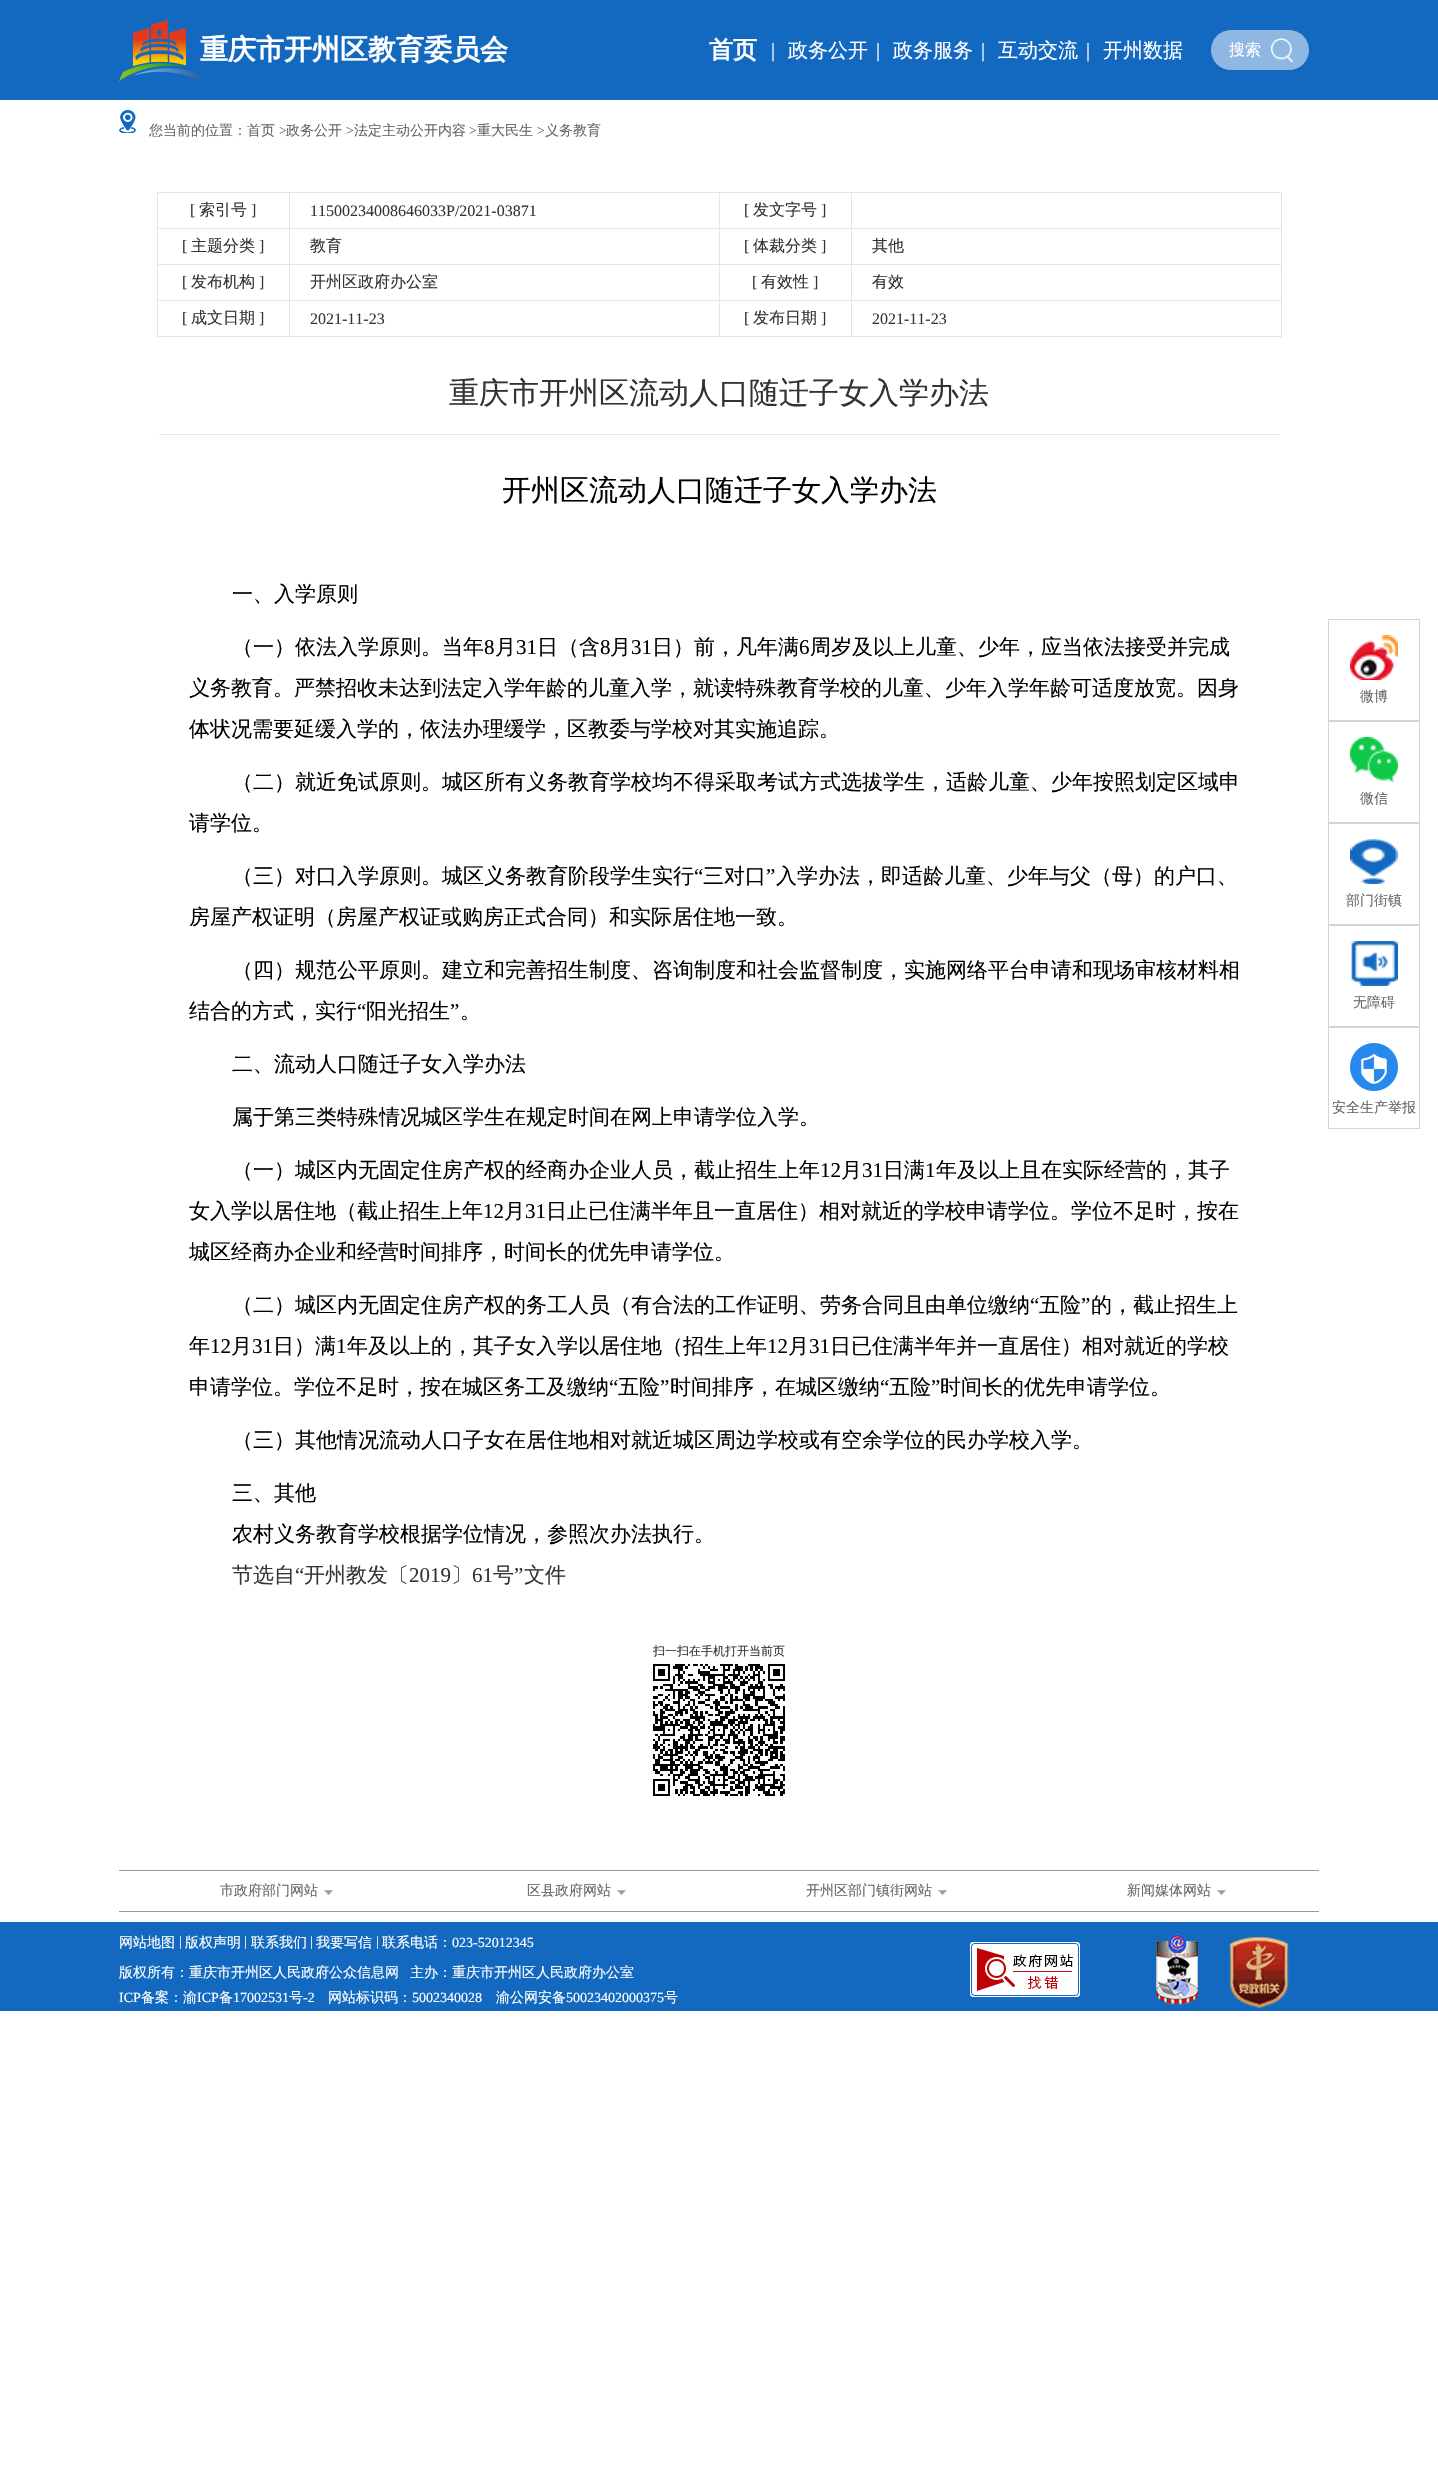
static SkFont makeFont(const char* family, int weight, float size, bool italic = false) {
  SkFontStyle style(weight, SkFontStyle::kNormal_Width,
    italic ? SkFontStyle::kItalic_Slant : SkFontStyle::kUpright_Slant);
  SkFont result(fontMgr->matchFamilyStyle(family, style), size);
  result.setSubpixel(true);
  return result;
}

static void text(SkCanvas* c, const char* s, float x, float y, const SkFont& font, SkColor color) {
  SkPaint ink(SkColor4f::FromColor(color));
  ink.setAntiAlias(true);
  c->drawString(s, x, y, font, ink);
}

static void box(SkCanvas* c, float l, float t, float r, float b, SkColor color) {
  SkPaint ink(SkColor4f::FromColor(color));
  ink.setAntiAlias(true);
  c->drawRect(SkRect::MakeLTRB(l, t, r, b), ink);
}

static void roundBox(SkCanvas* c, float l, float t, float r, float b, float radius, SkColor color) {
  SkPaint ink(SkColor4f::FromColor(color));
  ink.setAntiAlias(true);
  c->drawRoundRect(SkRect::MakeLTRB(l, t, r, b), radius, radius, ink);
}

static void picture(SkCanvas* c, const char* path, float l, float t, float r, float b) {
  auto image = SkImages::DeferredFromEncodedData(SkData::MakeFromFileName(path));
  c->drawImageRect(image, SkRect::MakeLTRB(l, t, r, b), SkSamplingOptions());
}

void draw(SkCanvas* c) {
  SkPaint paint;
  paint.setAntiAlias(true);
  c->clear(0xffffffff);
  box(c, 0, 0, 1438, 100, 0xff1369c0);
  picture(c, "img_01.png", 119, 20, 200, 81);
  SkFont face1 = makeFont("WenQuanYi Zen Hei", 700, 28);
  text(c, "重庆市开州区教育委员会", 200, 59, face1, 0xffffffff);
  SkFont face2 = makeFont("WenQuanYi Zen Hei", 700, 24);
  text(c, "首页", 709, 58, face2, 0xffffffff);
  SkFont face3 = makeFont("Liberation Serif", 400, 20);
  text(c, "|", 771, 57, face3, 0xffffffff);
  SkFont face4 = makeFont("WenQuanYi Zen Hei", 500, 20);
  text(c, "政务公开", 788, 57, face4, 0xffffffff);
  text(c, "|", 876, 57, face3, 0xffffffff);
  text(c, "政务服务", 893, 57, face4, 0xffffffff);
  text(c, "|", 981, 57, face3, 0xffffffff);
  text(c, "互动交流", 998, 57, face4, 0xffffffff);
  text(c, "|", 1086, 57, face3, 0xffffffff);
  text(c, "开州数据", 1103, 57, face4, 0xffffffff);
  roundBox(c, 1211, 30, 1309, 70, 20, 0xff8eb7e1);
  SkFont face5 = makeFont("WenQuanYi Zen Hei", 500, 16);
  text(c, "搜索", 1229, 55, face5, 0xffffffff);
  picture(c, "img_02.png", 1271, 38, 1293, 62);
  picture(c, "img_03.png", 119, 110, 136, 133);
  SkFont face6 = makeFont("WenQuanYi Zen Hei", 500, 14);
  text(c, "您当前的位置：首页", 149, 135, face6, 0xff666666);
  SkFont face7 = makeFont("Liberation Serif", 400, 14);
  text(c, ">", 279, 135, face7, 0xff666666);
  text(c, "政务公开", 286, 135, face6, 0xff666666);
  text(c, ">", 346, 135, face7, 0xff666666);
  text(c, "法定主动公开内容", 354, 135, face6, 0xff666666);
  text(c, ">", 469, 135, face7, 0xff666666);
  text(c, "重大民生", 477, 135, face6, 0xff666666);
  text(c, ">", 537, 135, face7, 0xff666666);
  text(c, "义务教育", 545, 135, face6, 0xff666666);
  box(c, 157, 192, 1282, 193, 0xffe5e5e5);
  box(c, 1281, 192, 1282, 337, 0xffe5e5e5);
  box(c, 157, 336, 1282, 337, 0xffe5e5e5);
  box(c, 157, 192, 158, 337, 0xffe5e5e5);
  SkFont face8 = makeFont("Liberation Serif", 400, 16);
  text(c, "[", 190, 215, face8, 0xff333333);
  text(c, "索引号", 199, 215, face5, 0xff333333);
  text(c, "]", 251, 215, face8, 0xff333333);
  text(c, "11500234008646033P/2021-03871", 310, 216, face8, 0xff333333);
  text(c, "[", 744, 215, face8, 0xff333333);
  text(c, "发文字号", 753, 215, face5, 0xff333333);
  text(c, "]", 821, 215, face8, 0xff333333);
  box(c, 157, 228, 1282, 229, 0xffe5e5e5);
  text(c, "[", 182, 251, face8, 0xff333333);
  text(c, "主题分类", 191, 251, face5, 0xff333333);
  text(c, "]", 259, 251, face8, 0xff333333);
  text(c, "教育", 310, 251, face5, 0xff333333);
  text(c, "[", 744, 251, face8, 0xff333333);
  text(c, "体裁分类", 753, 251, face5, 0xff333333);
  text(c, "]", 821, 251, face8, 0xff333333);
  text(c, "其他", 872, 251, face5, 0xff333333);
  box(c, 157, 264, 1282, 265, 0xffe5e5e5);
  text(c, "[", 182, 287, face8, 0xff333333);
  text(c, "发布机构", 191, 287, face5, 0xff333333);
  text(c, "]", 259, 287, face8, 0xff333333);
  text(c, "开州区政府办公室", 310, 287, face5, 0xff333333);
  text(c, "[", 752, 287, face8, 0xff333333);
  text(c, "有效性", 761, 287, face5, 0xff333333);
  text(c, "]", 813, 287, face8, 0xff333333);
  text(c, "有效", 872, 287, face5, 0xff333333);
  box(c, 157, 300, 1282, 301, 0xffe5e5e5);
  text(c, "[", 182, 323, face8, 0xff333333);
  text(c, "成文日期", 191, 323, face5, 0xff333333);
  text(c, "]", 259, 323, face8, 0xff333333);
  box(c, 289, 192, 290, 337, 0xffe5e5e5);
  text(c, "2021-11-23", 310, 324, face8, 0xff333333);
  box(c, 719, 192, 720, 337, 0xffe5e5e5);
  text(c, "[", 744, 323, face8, 0xff333333);
  text(c, "发布日期", 753, 323, face5, 0xff333333);
  text(c, "]", 821, 323, face8, 0xff333333);
  box(c, 851, 192, 852, 337, 0xffe5e5e5);
  text(c, "2021-11-23", 872, 324, face8, 0xff333333);
  SkFont face9 = makeFont("WenQuanYi Zen Hei", 500, 30);
  text(c, "重庆市开州区流动人口随迁子女入学办法", 449, 403, face9, 0xff333333);
  box(c, 159, 434, 1279, 435, 0xffe5e5e5);
  SkFont face10 = makeFont("WenQuanYi Zen Hei", 500, 29);
  text(c, "开州区流动人口随迁子女入学办法", 502, 500, face10, 0xff000000);
  SkFont face11 = makeFont("WenQuanYi Zen Hei", 500, 21);
  text(c, "一、入学原则", 232, 601, face11, 0xff000000);
  text(c, "（一）依法入学原则。当年", 232, 654, face11, 0xff000000);
  SkFont face12 = makeFont("Liberation Serif", 400, 21);
  text(c, "8", 484, 654, face12, 0xff000000);
  text(c, "月", 495, 654, face11, 0xff000000);
  text(c, "31", 516, 654, face12, 0xff000000);
  text(c, "日（含", 537, 654, face11, 0xff000000);
  text(c, "8", 600, 654, face12, 0xff000000);
  text(c, "月", 610, 654, face11, 0xff000000);
  text(c, "31", 631, 654, face12, 0xff000000);
  text(c, "日）前，凡年满", 652, 654, face11, 0xff000000);
  text(c, "6", 799, 654, face12, 0xff000000);
  text(c, "周岁及以上儿童、少年，应当依法接受并完成", 810, 654, face11, 0xff000000);
  text(c, "义务教育。严禁招收未达到法定入学年龄的儿童入学，就读特殊教育学校的儿童、少年入学年龄可适度放宽。因身", 189, 695, face11, 0xff000000);
  text(c, "体状况需要延缓入学的，依法办理缓学，区教委与学校对其实施追踪。", 189, 736, face11, 0xff000000);
  text(c, "（二）就近免试原则。城区所有义务教育学校均不得采取考试方式选拔学生，适龄儿童、少年按照划定区域申", 232, 789, face11, 0xff000000);
  text(c, "请学位。", 189, 830, face11, 0xff000000);
  text(c, "（三）对口入学原则。城区义务教育阶段学生实行", 232, 883, face11, 0xff000000);
  text(c, "“", 694, 883, face12, 0xff000000);
  text(c, "三对口", 703, 883, face11, 0xff000000);
  text(c, "”", 766, 883, face12, 0xff000000);
  text(c, "入学办法，即适龄儿童、少年与父（母）的户口、", 776, 883, face11, 0xff000000);
  text(c, "房屋产权证明（房屋产权证或购房正式合同）和实际居住地一致。", 189, 924, face11, 0xff000000);
  text(c, "（四）规范公平原则。建立和完善招生制度、咨询制度和社会监督制度，实施网络平台申请和现场审核材料相", 232, 977, face11, 0xff000000);
  text(c, "结合的方式，实行", 189, 1018, face11, 0xff000000);
  text(c, "“", 357, 1018, face12, 0xff000000);
  text(c, "阳光招生", 366, 1018, face11, 0xff000000);
  text(c, "”", 450, 1018, face12, 0xff000000);
  text(c, "。", 460, 1018, face11, 0xff000000);
  text(c, "二、流动人口随迁子女入学办法", 232, 1071, face11, 0xff000000);
  text(c, "属于第三类特殊情况城区学生在规定时间在网上申请学位入学。", 232, 1124, face11, 0xff000000);
  text(c, "（一）城区内无固定住房产权的经商办企业人员，截止招生上年", 232, 1177, face11, 0xff000000);
  text(c, "12", 820, 1177, face12, 0xff000000);
  text(c, "月", 841, 1177, face11, 0xff000000);
  text(c, "31", 862, 1177, face12, 0xff000000);
  text(c, "日满", 883, 1177, face11, 0xff000000);
  text(c, "1", 925, 1177, face12, 0xff000000);
  text(c, "年及以上且在实际经营的，其子", 936, 1177, face11, 0xff000000);
  text(c, "女入学以居住地（截止招生上年", 189, 1218, face11, 0xff000000);
  text(c, "12", 483, 1218, face12, 0xff000000);
  text(c, "月", 504, 1218, face11, 0xff000000);
  text(c, "31", 525, 1218, face12, 0xff000000);
  text(c, "日止已住满半年且一直居住）相对就近的学校申请学位。学位不足时，按在", 546, 1218, face11, 0xff000000);
  text(c, "城区经商办企业和经营时间排序，时间长的优先申请学位。", 189, 1259, face11, 0xff000000);
  text(c, "（二）城区内无固定住房产权的务工人员（有合法的工作证明、劳务合同且由单位缴纳", 232, 1312, face11, 0xff000000);
  text(c, "“", 1030, 1312, face12, 0xff000000);
  text(c, "五险", 1039, 1312, face11, 0xff000000);
  text(c, "”", 1081, 1312, face12, 0xff000000);
  text(c, "的，截止招生上", 1091, 1312, face11, 0xff000000);
  text(c, "年", 189, 1353, face11, 0xff000000);
  text(c, "12", 210, 1353, face12, 0xff000000);
  text(c, "月", 231, 1353, face11, 0xff000000);
  text(c, "31", 252, 1353, face12, 0xff000000);
  text(c, "日）满", 273, 1353, face11, 0xff000000);
  text(c, "1", 336, 1353, face12, 0xff000000);
  text(c, "年及以上的，其子女入学以居住地（招生上年", 347, 1353, face11, 0xff000000);
  text(c, "12", 767, 1353, face12, 0xff000000);
  text(c, "月", 788, 1353, face11, 0xff000000);
  text(c, "31", 809, 1353, face12, 0xff000000);
  text(c, "日已住满半年并一直居住）相对就近的学校", 830, 1353, face11, 0xff000000);
  text(c, "申请学位。学位不足时，按在城区务工及缴纳", 189, 1394, face11, 0xff000000);
  text(c, "“", 609, 1394, face12, 0xff000000);
  text(c, "五险", 618, 1394, face11, 0xff000000);
  text(c, "”", 660, 1394, face12, 0xff000000);
  text(c, "时间排序，在城区缴纳", 670, 1394, face11, 0xff000000);
  text(c, "“", 880, 1394, face12, 0xff000000);
  text(c, "五险", 889, 1394, face11, 0xff000000);
  text(c, "”", 931, 1394, face12, 0xff000000);
  text(c, "时间长的优先申请学位。", 940, 1394, face11, 0xff000000);
  text(c, "（三）其他情况流动人口子女在居住地相对就近城区周边学校或有空余学位的民办学校入学。", 232, 1447, face11, 0xff000000);
  text(c, "三、其他", 232, 1500, face11, 0xff000000);
  text(c, "农村义务教育学校根据学位情况，参照次办法执行。", 232, 1541, face11, 0xff000000);
  text(c, "节选自", 232, 1582, face11, 0xff333333);
  text(c, "“", 295, 1582, face12, 0xff333333);
  text(c, "开州教发〔", 304, 1582, face11, 0xff333333);
  text(c, "2019", 409, 1582, face12, 0xff333333);
  text(c, "〕", 451, 1582, face11, 0xff333333);
  text(c, "61", 472, 1582, face12, 0xff333333);
  text(c, "号", 493, 1582, face11, 0xff333333);
  text(c, "”", 514, 1582, face12, 0xff333333);
  text(c, "文件", 524, 1582, face11, 0xff333333);
  SkFont face13 = makeFont("WenQuanYi Zen Hei", 500, 12);
  text(c, "扫一扫在手机打开当前页", 653, 1655, face13, 0xff333333);
  picture(c, "img_04.png", 653, 1664, 785, 1796);
  paint.setStyle(SkPaint::kStroke_Style);
  paint.setStrokeWidth(1);
  paint.setColor(0xffd5d5d5);
  c->drawRect(SkRect::MakeLTRB(1328.5f, 619.5f, 1419.5f, 720.5f), paint);
  picture(c, "img_05.png", 1350, 635, 1398, 680);
  text(c, "微博", 1360, 701, face6, 0xff666666);
  c->drawRect(SkRect::MakeLTRB(1328.5f, 721.5f, 1419.5f, 822.5f), paint);
  picture(c, "img_06.png", 1350, 737, 1398, 782);
  text(c, "微信", 1360, 803, face6, 0xff666666);
  c->drawRect(SkRect::MakeLTRB(1328.5f, 823.5f, 1419.5f, 924.5f), paint);
  picture(c, "img_07.png", 1350, 839, 1398, 884);
  text(c, "部门街镇", 1346, 905, face6, 0xff666666);
  c->drawRect(SkRect::MakeLTRB(1328.5f, 925.5f, 1419.5f, 1026.5f), paint);
  picture(c, "img_08.png", 1351, 941, 1398, 986);
  text(c, "无障碍", 1353, 1007, face6, 0xff666666);
  c->drawRect(SkRect::MakeLTRB(1328.5f, 1027.5f, 1419.5f, 1128.5f), paint);
  picture(c, "img_09.png", 1350, 1043, 1398, 1091);
  text(c, "安全生产举报", 1332, 1112, face6, 0xff666666);
  box(c, 119, 1870, 1319, 1871, 0xff999999);
  box(c, 119, 1911, 1319, 1912, 0xff999999);
  picture(c, "img_10.png", 324, 1890, 333, 1896);
  text(c, "市政府部门网站", 220, 1895, face6, 0xff666666);
  picture(c, "img_10.png", 617, 1890, 626, 1896);
  text(c, "区县政府网站", 527, 1895, face6, 0xff666666);
  picture(c, "img_10.png", 938, 1890, 947, 1896);
  text(c, "开州区部门镇街网站", 806, 1895, face6, 0xff666666);
  picture(c, "img_10.png", 1217, 1890, 1226, 1896);
  text(c, "新闻媒体网站", 1127, 1895, face6, 0xff666666);
  box(c, 0, 1922, 1438, 2011, 0xff1369c0);
  text(c, "网站地图", 119, 1947, face6, 0xffffffff);
  text(c, "|", 179, 1946, face7, 0xffffffff);
  text(c, "版权声明", 185, 1947, face6, 0xffffffff);
  text(c, "|", 244, 1946, face7, 0xffffffff);
  text(c, "联系我们", 251, 1947, face6, 0xffffffff);
  text(c, "|", 310, 1946, face7, 0xffffffff);
  text(c, "我要写信", 316, 1947, face6, 0xffffffff);
  text(c, "|", 376, 1946, face7, 0xffffffff);
  text(c, "联系电话：", 382, 1947, face6, 0xffffffff);
  text(c, "023-52012345", 452, 1947, face7, 0xffffffff);
  text(c, "版权所有：重庆市开州区人民政府公众信息网", 119, 1977, face6, 0xffffffff);
  text(c, "主办：重庆市开州区人民政府办公室", 410, 1977, face6, 0xffffffff);
  text(c, "ICP", 119, 2002, face7, 0xffffffff);
  text(c, "备案：渝", 141, 2002, face6, 0xffffffff);
  text(c, "ICP", 197, 2002, face7, 0xffffffff);
  text(c, "备", 219, 2002, face6, 0xffffffff);
  text(c, "17002531", 233, 2002, face7, 0xffffffff);
  text(c, "号", 289, 2002, face6, 0xffffffff);
  text(c, "-2", 303, 2002, face7, 0xffffffff);
  text(c, "网站标识码：", 328, 2002, face6, 0xffffffff);
  text(c, "5002340028", 412, 2002, face7, 0xffffffff);
  text(c, "渝公网安备", 496, 2002, face6, 0xffffffff);
  text(c, "50023402000375", 566, 2002, face7, 0xffffffff);
  text(c, "号", 664, 2002, face6, 0xffffffff);
  picture(c, "img_11.png", 970, 1942, 1080, 1997);
  picture(c, "img_12.png", 1156, 1934, 1198, 2005);
  picture(c, "img_13.png", 1229, 1936, 1289, 2009);
}
